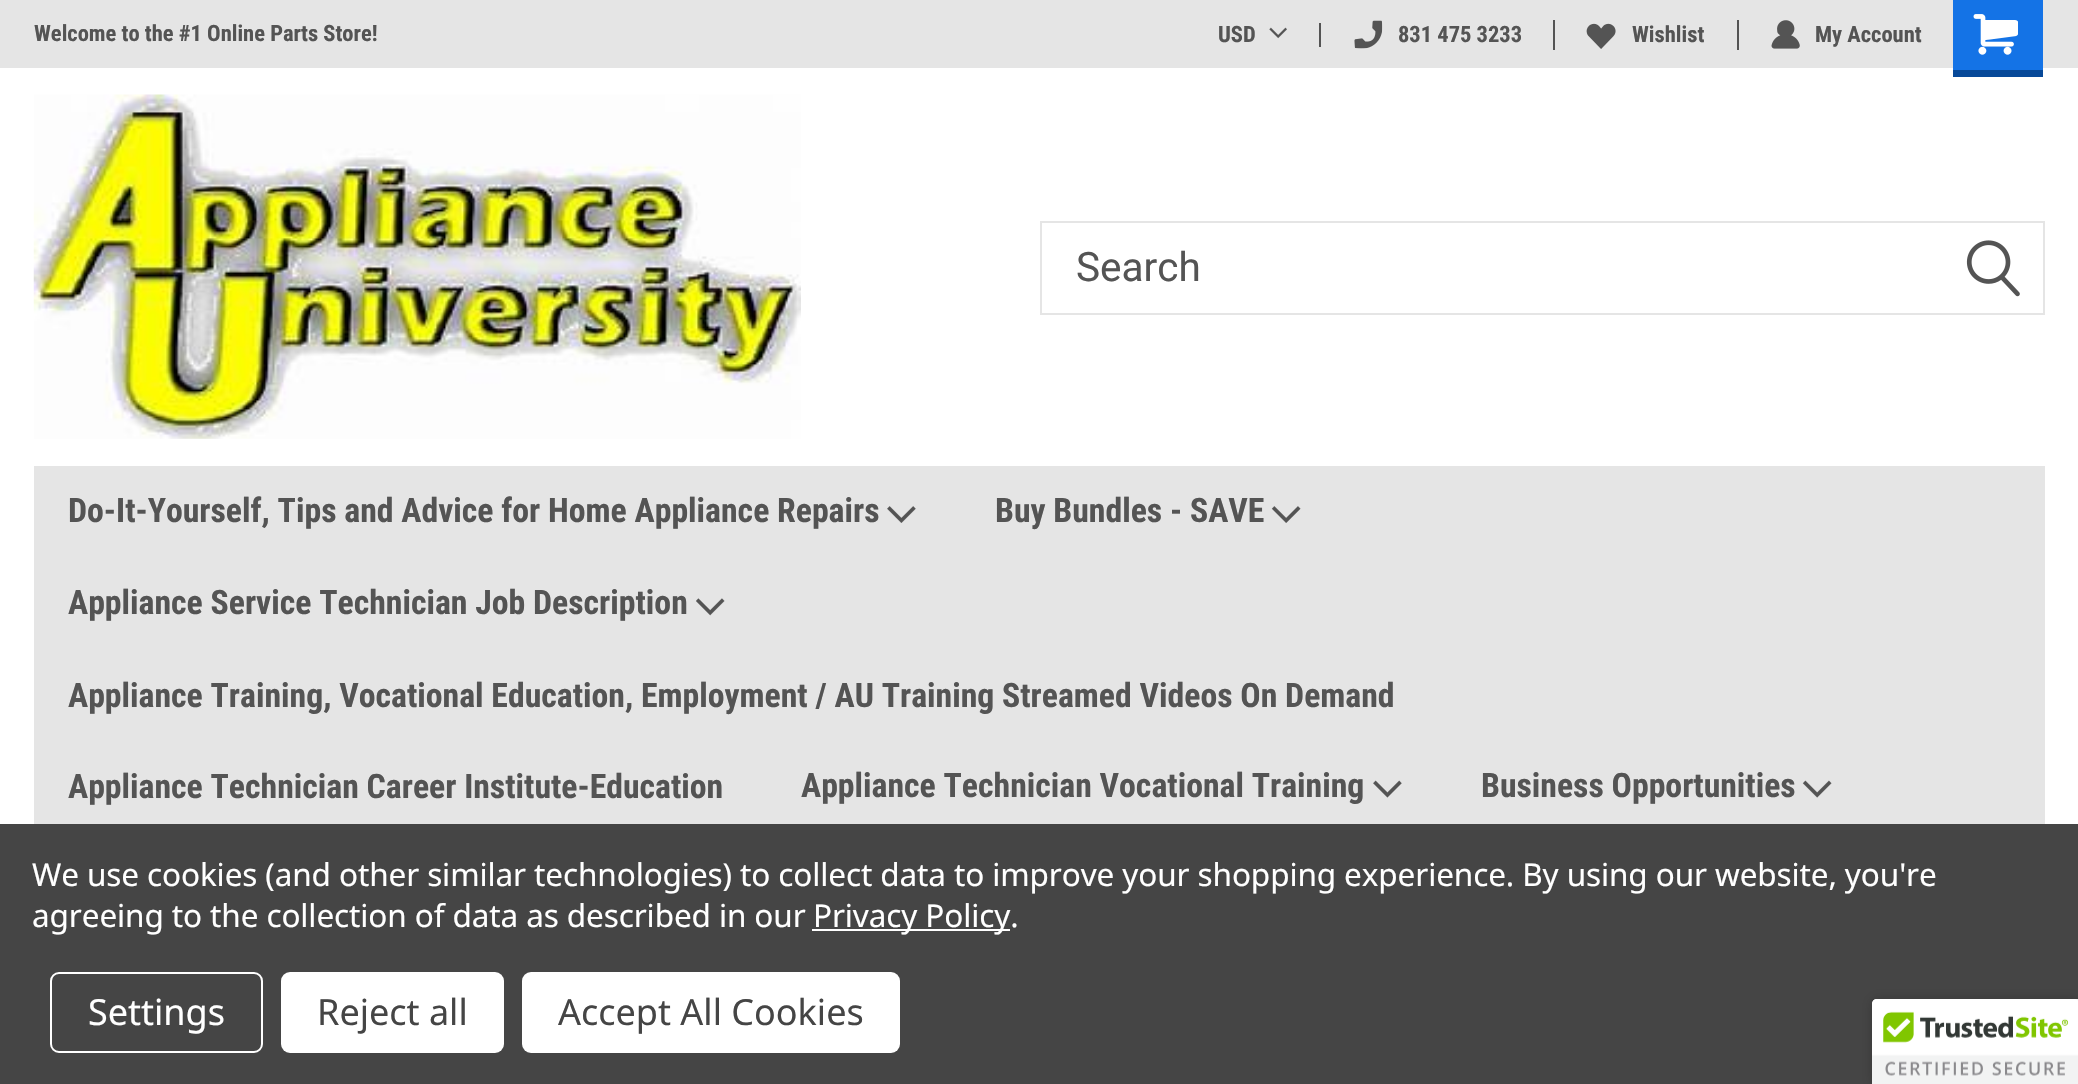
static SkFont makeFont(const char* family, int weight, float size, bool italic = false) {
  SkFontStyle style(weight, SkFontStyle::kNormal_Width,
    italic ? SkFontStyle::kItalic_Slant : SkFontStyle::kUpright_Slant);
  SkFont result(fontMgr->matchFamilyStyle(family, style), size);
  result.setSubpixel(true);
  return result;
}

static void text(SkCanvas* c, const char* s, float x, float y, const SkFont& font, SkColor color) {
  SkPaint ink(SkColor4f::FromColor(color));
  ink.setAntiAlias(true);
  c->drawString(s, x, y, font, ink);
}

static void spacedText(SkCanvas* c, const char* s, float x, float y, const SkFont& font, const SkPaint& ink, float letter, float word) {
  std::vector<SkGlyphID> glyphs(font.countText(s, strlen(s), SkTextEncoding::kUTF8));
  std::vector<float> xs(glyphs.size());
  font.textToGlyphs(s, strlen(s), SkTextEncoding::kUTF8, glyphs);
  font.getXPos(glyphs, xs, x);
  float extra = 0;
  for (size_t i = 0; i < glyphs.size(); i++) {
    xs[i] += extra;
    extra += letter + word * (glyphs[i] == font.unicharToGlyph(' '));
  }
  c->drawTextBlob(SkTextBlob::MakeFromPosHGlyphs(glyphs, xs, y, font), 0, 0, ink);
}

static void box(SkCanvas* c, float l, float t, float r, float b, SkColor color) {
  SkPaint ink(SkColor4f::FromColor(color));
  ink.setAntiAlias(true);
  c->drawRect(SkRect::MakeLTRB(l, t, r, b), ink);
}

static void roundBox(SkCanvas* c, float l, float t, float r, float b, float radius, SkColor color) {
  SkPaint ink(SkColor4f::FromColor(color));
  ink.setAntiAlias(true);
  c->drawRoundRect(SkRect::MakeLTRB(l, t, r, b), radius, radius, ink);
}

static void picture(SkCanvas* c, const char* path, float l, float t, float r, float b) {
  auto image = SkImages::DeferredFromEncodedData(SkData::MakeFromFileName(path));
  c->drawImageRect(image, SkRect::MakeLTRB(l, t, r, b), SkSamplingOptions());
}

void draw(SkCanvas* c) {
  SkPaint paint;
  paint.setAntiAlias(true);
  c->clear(0xffffffff);
  box(c, 0, 0, 2078, 68, 0xffe5e5e5);
  SkFont face1 = makeFont("Roboto Condensed", 700, 22.5f);
  text(c, "Welcome to the #1 Online Parts Store!", 34, 41, face1, 0xff545454);
  box(c, 1319, 23, 1321, 47, 0xff545454);
  text(c, "USD", 1218, 42, face1, 0xff545454);
  picture(c, "img_01.png", 1269, 27, 1287, 39);
  box(c, 1553, 20, 1555, 50, 0xff545454);
  picture(c, "img_02.png", 1354, 20, 1383, 49);
  text(c, "831 475 3233", 1398, 42, face1, 0xff545454);
  box(c, 1737, 20, 1739, 50, 0xff545454);
  picture(c, "img_03.png", 1586, 23, 1616, 49);
  text(c, "Wishlist", 1632, 42, face1, 0xff545454);
  picture(c, "img_04.png", 1771, 20, 1800, 49);
  text(c, "My Account", 1815, 42, face1, 0xff545454);
  box(c, 1953, 0, 2043, 70, 0xff1473e6);
  box(c, 1953, 70, 2043, 77, 0xff074999);
  picture(c, "img_05.png", 1973, 14, 2018, 55);
  picture(c, "img_06.png", 33, 94, 801, 439);
  paint.setStyle(SkPaint::kStroke_Style);
  paint.setStrokeWidth(2);
  paint.setColor(0xffe5e5e5);
  c->drawRect(SkRect::MakeLTRB(1041, 222, 2044, 314), paint);
  SkFont face2 = makeFont("Roboto", 400, 40.5f);
  text(c, "Search", 1076, 281, face2, 0xff545454);
  picture(c, "img_07.png", 1966, 240, 2020, 297);
  box(c, 34, 466, 2045, 824, 0xffe5e5e5);
  SkFont face3 = makeFont("Roboto Condensed", 700, 33.75f);
  text(c, "Do-It-Yourself, Tips and Advice for Home Appliance Repairs", 68, 522, face3, 0xff545454);
  picture(c, "img_08.png", 887, 506, 916, 523);
  text(c, "Buy Bundles - SAVE", 995, 522, face3, 0xff545454);
  picture(c, "img_09.png", 1271, 506, 1301, 523);
  text(c, "Appliance Service Technician Job Description", 68, 614, face3, 0xff545454);
  picture(c, "img_10.png", 696, 598, 725, 616);
  text(c, "Appliance Training, Vocational Education, Employment / AU Training Streamed Videos On Demand", 68, 707, face3, 0xff545454);
  text(c, "Appliance Technician Career Institute-Education", 68, 798, face3, 0xff545454);
  text(c, "Appliance Technician Vocational Training", 801, 797, face3, 0xff545454);
  picture(c, "img_11.png", 1373, 780, 1402, 798);
  text(c, "Business Opportunities", 1481, 797, face3, 0xff545454);
  picture(c, "img_12.png", 1802, 780, 1832, 798);
  box(c, 0, 824, 2078, 1084, 0xff454545);
  SkFont face4 = makeFont("Noto Sans", 400, 31.5f);
  paint.setStyle(SkPaint::kFill_Style);
  paint.setColor(0xffffffff);
  spacedText(c, "We use cookies (and other similar technologies) to collect data to improve your shopping experience. By using our website, you're", 32, 886, face4, paint, -0.11f, 0);
  spacedText(c, "agreeing to the collection of data as described in our", 32, 927, face4, paint, -0.11f, 0);
  box(c, 812, 929, 1010, 931, 0xffffffff);
  spacedText(c, "Privacy Policy.", 813, 927, face4, paint, -0.11f, 0);
  paint.setStyle(SkPaint::kStroke_Style);
  c->drawRoundRect(SkRect::MakeLTRB(51, 973, 262, 1052), 8, 8, paint);
  SkFont face5 = makeFont("Noto Sans", 400, 36);
  text(c, "Settings", 88, 1025, face5, 0xffffffff);
  roundBox(c, 281, 972, 504, 1053, 9, 0xffffffff);
  text(c, "Reject all", 317, 1025, face5, 0xff454545);
  roundBox(c, 522, 972, 900, 1053, 9, 0xffffffff);
  text(c, "Accept All Cookies", 558, 1025, face5, 0xff454545);
  paint.setStyle(SkPaint::kFill_Style);
  paint.setColor(0x33000000);
  paint.setMaskFilter(SkMaskFilter::MakeBlur(kNormal_SkBlurStyle, 5.5f));
  c->drawRoundRect(SkRect::MakeLTRB(1872, 999, 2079, 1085), 5, 5, paint);
  paint.setMaskFilter(nullptr);
  paint.setColor(0xffffffff);
  c->drawPath(SkPathBuilder().moveTo(1877, 999).lineTo(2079, 999).lineTo(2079, 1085).lineTo(1872, 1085).lineTo(1872, 1004).cubicTo(1872, 1001, 1874, 999, 1877, 999).close().detach(), paint);
  picture(c, "img_13.png", 1872, 999, 2078, 1084);
}
